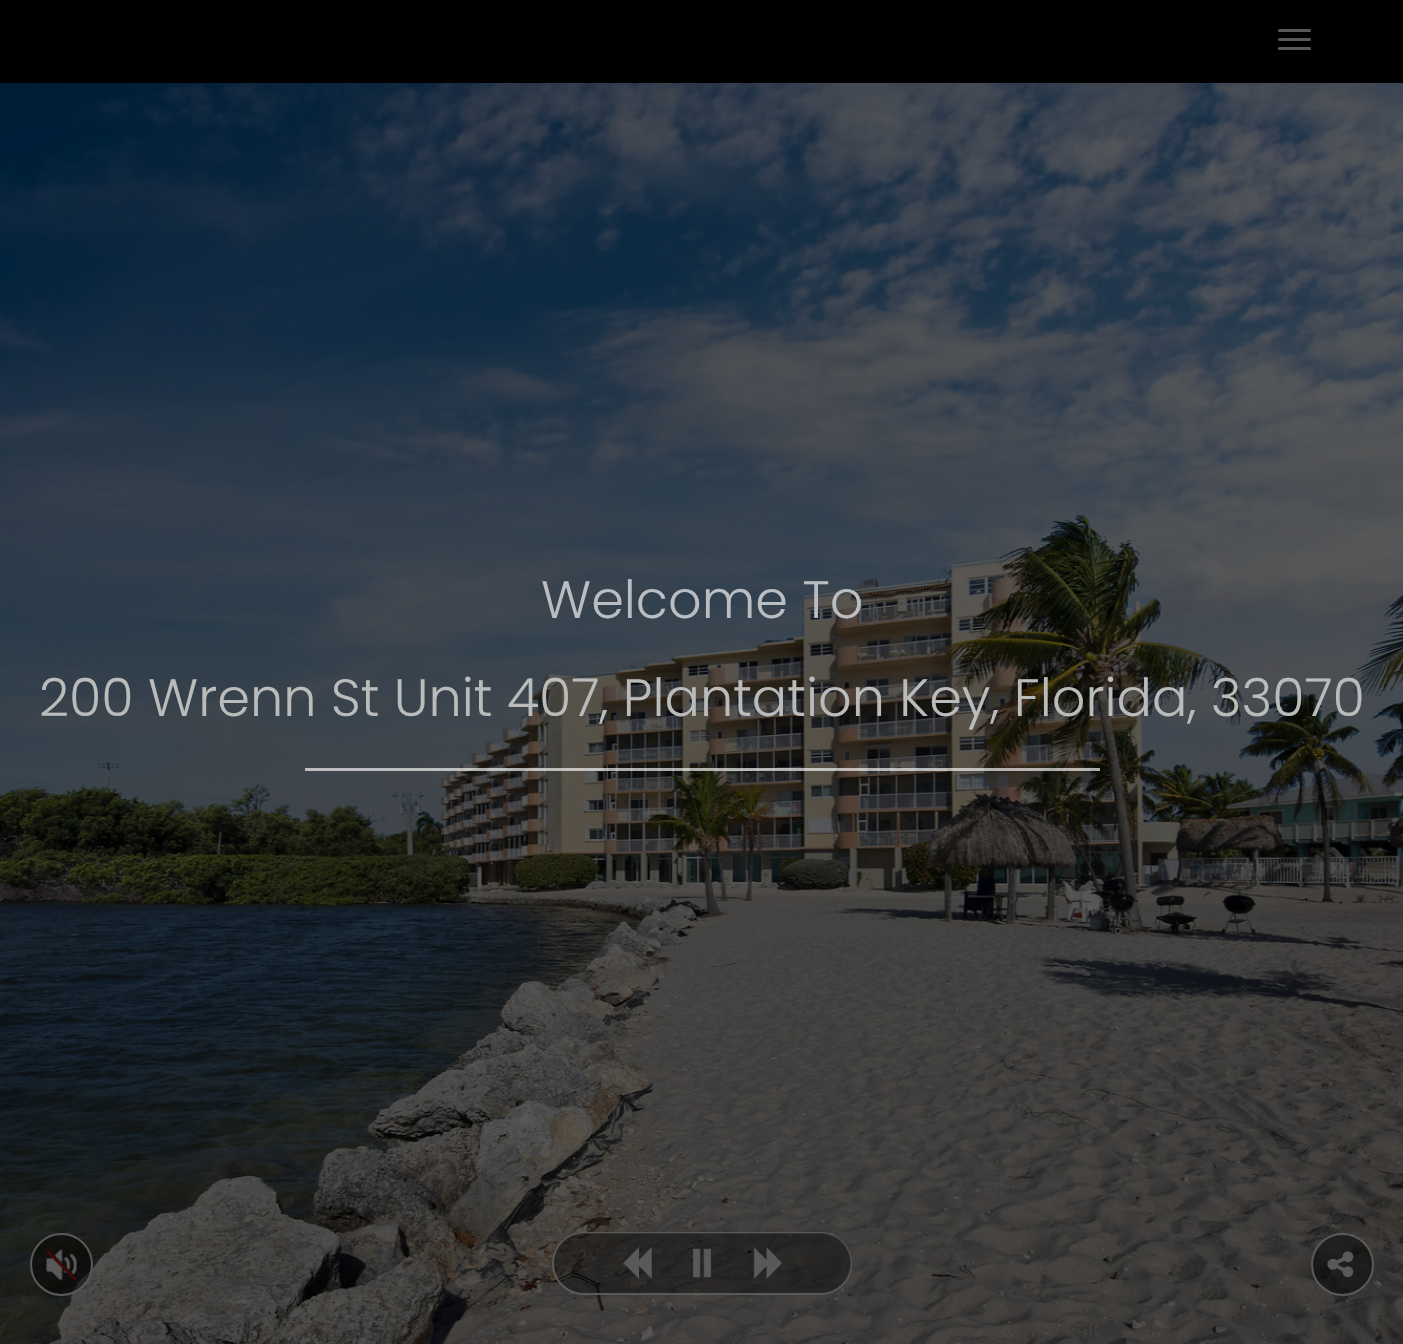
static SkFont makeFont(const char* family, int weight, float size, bool italic = false) {
  SkFontStyle style(weight, SkFontStyle::kNormal_Width,
    italic ? SkFontStyle::kItalic_Slant : SkFontStyle::kUpright_Slant);
  SkFont result(fontMgr->matchFamilyStyle(family, style), size);
  result.setSubpixel(true);
  return result;
}

static void text(SkCanvas* c, const char* s, float x, float y, const SkFont& font, SkColor color) {
  SkPaint ink(SkColor4f::FromColor(color));
  ink.setAntiAlias(true);
  c->drawString(s, x, y, font, ink);
}

static void box(SkCanvas* c, float l, float t, float r, float b, SkColor color) {
  SkPaint ink(SkColor4f::FromColor(color));
  ink.setAntiAlias(true);
  c->drawRect(SkRect::MakeLTRB(l, t, r, b), ink);
}

static void roundBox(SkCanvas* c, float l, float t, float r, float b, float radius, SkColor color) {
  SkPaint ink(SkColor4f::FromColor(color));
  ink.setAntiAlias(true);
  c->drawRoundRect(SkRect::MakeLTRB(l, t, r, b), radius, radius, ink);
}

static void picture(SkCanvas* c, const char* path, float l, float t, float r, float b) {
  auto image = SkImages::DeferredFromEncodedData(SkData::MakeFromFileName(path));
  c->drawImageRect(image, SkRect::MakeLTRB(l, t, r, b), SkSamplingOptions());
}

void draw(SkCanvas* c) {
  SkPaint paint;
  paint.setAntiAlias(true);
  c->clear(0xffffffff);
  box(c, 0, 0, 1403, 83, 0xff000000);
  roundBox(c, 1278, 29, 1311, 32, 1.5f, 0xff595959);
  roundBox(c, 1278, 38, 1311, 41, 1.5f, 0xff595959);
  roundBox(c, 1278, 47, 1311, 50, 1.5f, 0xff595959);
  picture(c, "img_01.png", 0, 83, 1403, 1344);
  paint.setColor(0x80000000);
  c->drawCircle(61.5f, 1264.5f, 30.5f, paint);
  paint.setStyle(SkPaint::kStroke_Style);
  paint.setStrokeWidth(2);
  paint.setColor(0xff595959);
  c->drawCircle(61.5f, 1264.5f, 30.5f, paint);
  picture(c, "img_02.png", 46, 1249, 77, 1280);
  c->drawRoundRect(SkRect::MakeLTRB(553, 1233, 851, 1294), 30.5f, 30.5f, paint);
  roundBox(c, 554, 1233, 851, 1293, 30, 0x66000000);
  picture(c, "img_03.png", 623, 1247, 652, 1279);
  picture(c, "img_04.png", 693, 1248, 711, 1278);
  picture(c, "img_05.png", 753, 1247, 783, 1279);
  paint.setStyle(SkPaint::kFill_Style);
  paint.setColor(0x80000000);
  c->drawCircle(1342.5f, 1264.5f, 30.5f, paint);
  paint.setStyle(SkPaint::kStroke_Style);
  paint.setColor(0xff595959);
  c->drawCircle(1342.5f, 1264.5f, 30.5f, paint);
  picture(c, "img_06.png", 1327, 1251, 1354, 1278);
  SkFont face1 = makeFont("Poppins", 300, 52.5f);
  text(c, "Welcome To", 541, 618, face1, 0xffbabdc1);
  text(c, "200 Wrenn St Unit 407, Plantation Key, Florida, 33070", 39, 716, face1, 0xffbabbbb);
  box(c, 305, 768, 1100, 771, 0xa6ffffff);
}
